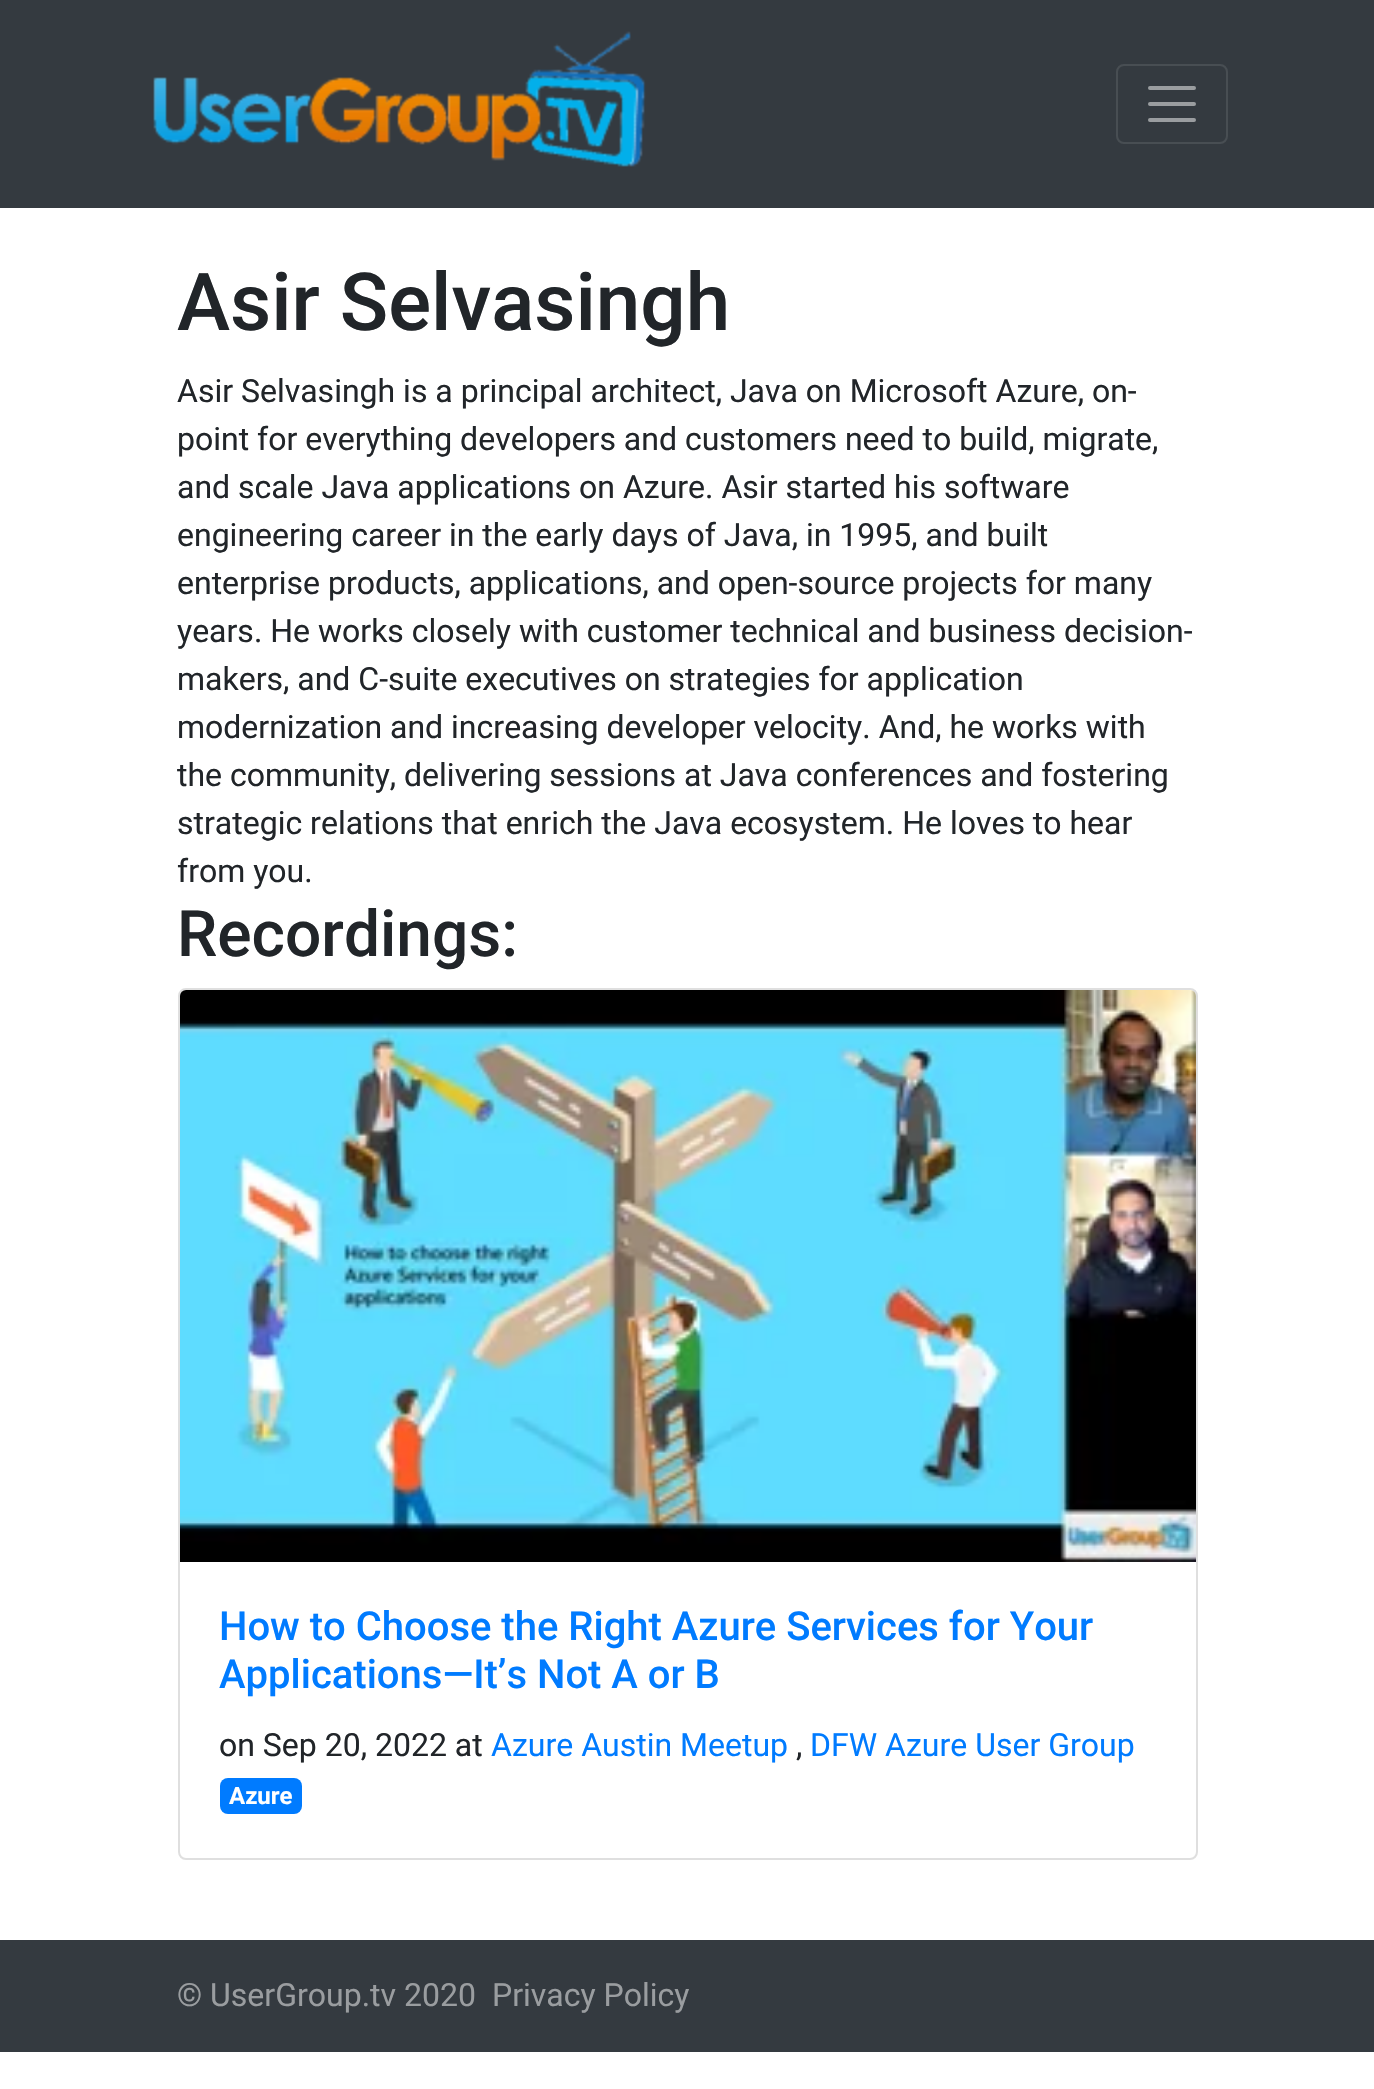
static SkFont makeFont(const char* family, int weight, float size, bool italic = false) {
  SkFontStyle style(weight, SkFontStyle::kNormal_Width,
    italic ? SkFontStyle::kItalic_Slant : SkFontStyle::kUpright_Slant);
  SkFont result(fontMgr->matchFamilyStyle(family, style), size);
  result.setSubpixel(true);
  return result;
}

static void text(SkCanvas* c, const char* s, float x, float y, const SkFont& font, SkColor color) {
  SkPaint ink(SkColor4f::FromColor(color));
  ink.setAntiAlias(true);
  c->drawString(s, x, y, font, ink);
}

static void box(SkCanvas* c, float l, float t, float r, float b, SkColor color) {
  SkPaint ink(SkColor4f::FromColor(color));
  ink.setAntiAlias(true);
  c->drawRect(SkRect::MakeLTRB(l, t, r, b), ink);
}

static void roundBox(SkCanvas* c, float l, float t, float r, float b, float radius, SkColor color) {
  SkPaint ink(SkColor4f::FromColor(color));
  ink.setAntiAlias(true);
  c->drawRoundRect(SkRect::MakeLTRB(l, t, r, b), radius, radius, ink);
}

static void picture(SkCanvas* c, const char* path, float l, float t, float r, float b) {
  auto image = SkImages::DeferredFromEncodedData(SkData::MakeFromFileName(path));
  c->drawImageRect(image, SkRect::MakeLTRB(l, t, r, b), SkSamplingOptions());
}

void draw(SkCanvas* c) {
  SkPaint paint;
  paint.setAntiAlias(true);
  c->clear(0xffffffff);
  box(c, 0, 0, 1374, 208, 0xff343a40);
  picture(c, "img_01.png", 153, 31, 646, 167);
  paint.setStyle(SkPaint::kStroke_Style);
  paint.setStrokeWidth(2);
  paint.setColor(0xff484e53);
  c->drawRoundRect(SkRect::MakeLTRB(1117, 65, 1227, 143), 7, 7, paint);
  paint.setStrokeWidth(4);
  paint.setStrokeCap(SkPaint::kRound_Cap);
  paint.setColor(0xff9a9da0);
  c->drawPath(SkPathBuilder().moveTo(1150, 88).lineTo(1194, 88).moveTo(1150, 104).lineTo(1194, 104).moveTo(1150, 120).lineTo(1194, 120).detach(), paint);
  SkFont face1 = makeFont("Roboto", 500, 80);
  text(c, "Asir Selvasingh", 177, 330, face1, 0xff212529);
  SkFont face2 = makeFont("Roboto", 400, 32);
  text(c, "Asir Selvasingh is a principal architect, Java on Microsoft Azure, on-", 177, 402, face2, 0xff212529);
  text(c, "point for everything developers and customers need to build, migrate,", 177, 450, face2, 0xff212529);
  text(c, "and scale Java applications on Azure. Asir started his software", 177, 498, face2, 0xff212529);
  text(c, "engineering career in the early days of Java, in 1995, and built", 177, 546, face2, 0xff212529);
  text(c, "enterprise products, applications, and open-source projects for many", 177, 594, face2, 0xff212529);
  text(c, "years. He works closely with customer technical and business decision-", 177, 642, face2, 0xff212529);
  text(c, "makers, and C-suite executives on strategies for application", 177, 690, face2, 0xff212529);
  text(c, "modernization and increasing developer velocity. And, he works with", 177, 738, face2, 0xff212529);
  text(c, "the community, delivering sessions at Java conferences and fostering", 177, 786, face2, 0xff212529);
  text(c, "strategic relations that enrich the Java ecosystem. He loves to hear", 177, 834, face2, 0xff212529);
  text(c, "from you.", 177, 882, face2, 0xff212529);
  SkFont face3 = makeFont("Roboto", 500, 64);
  text(c, "Recordings:", 177, 956, face3, 0xff212529);
  paint.setStrokeWidth(2);
  paint.setStrokeCap(SkPaint::kButt_Cap);
  paint.setColor(0xffdfdfdf);
  c->drawRoundRect(SkRect::MakeLTRB(179, 989, 1197, 1859), 7, 7, paint);
  picture(c, "img_02.png", 180, 990, 1196, 1562);
  SkFont face4 = makeFont("Roboto", 500, 40);
  text(c, "How to Choose the Right Azure Services for Your", 219, 1640, face4, 0xff007bff);
  text(c, "Applications—It’s Not A or B", 219, 1688, face4, 0xff007bff);
  text(c, "on Sep 20, 2022 at", 219, 1756, face2, 0xff212529);
  text(c, "Azure Austin Meetup", 491, 1756, face2, 0xff007bff);
  text(c, ",", 796, 1756, face2, 0xff212529);
  text(c, "DFW Azure User Group", 810, 1756, face2, 0xff007bff);
  roundBox(c, 220, 1778, 302, 1814, 8, 0xff007bff);
  SkFont face5 = makeFont("Roboto", 700, 24);
  text(c, "Azure", 229, 1804, face5, 0xffffffff);
  box(c, 0, 1940, 1374, 2052, 0xff343a40);
  text(c, "© UserGroup.tv 2020", 177, 2006, face2, 0xff9a9da0);
  text(c, "Privacy Policy", 492, 2006, face2, 0xff9a9da0);
}
